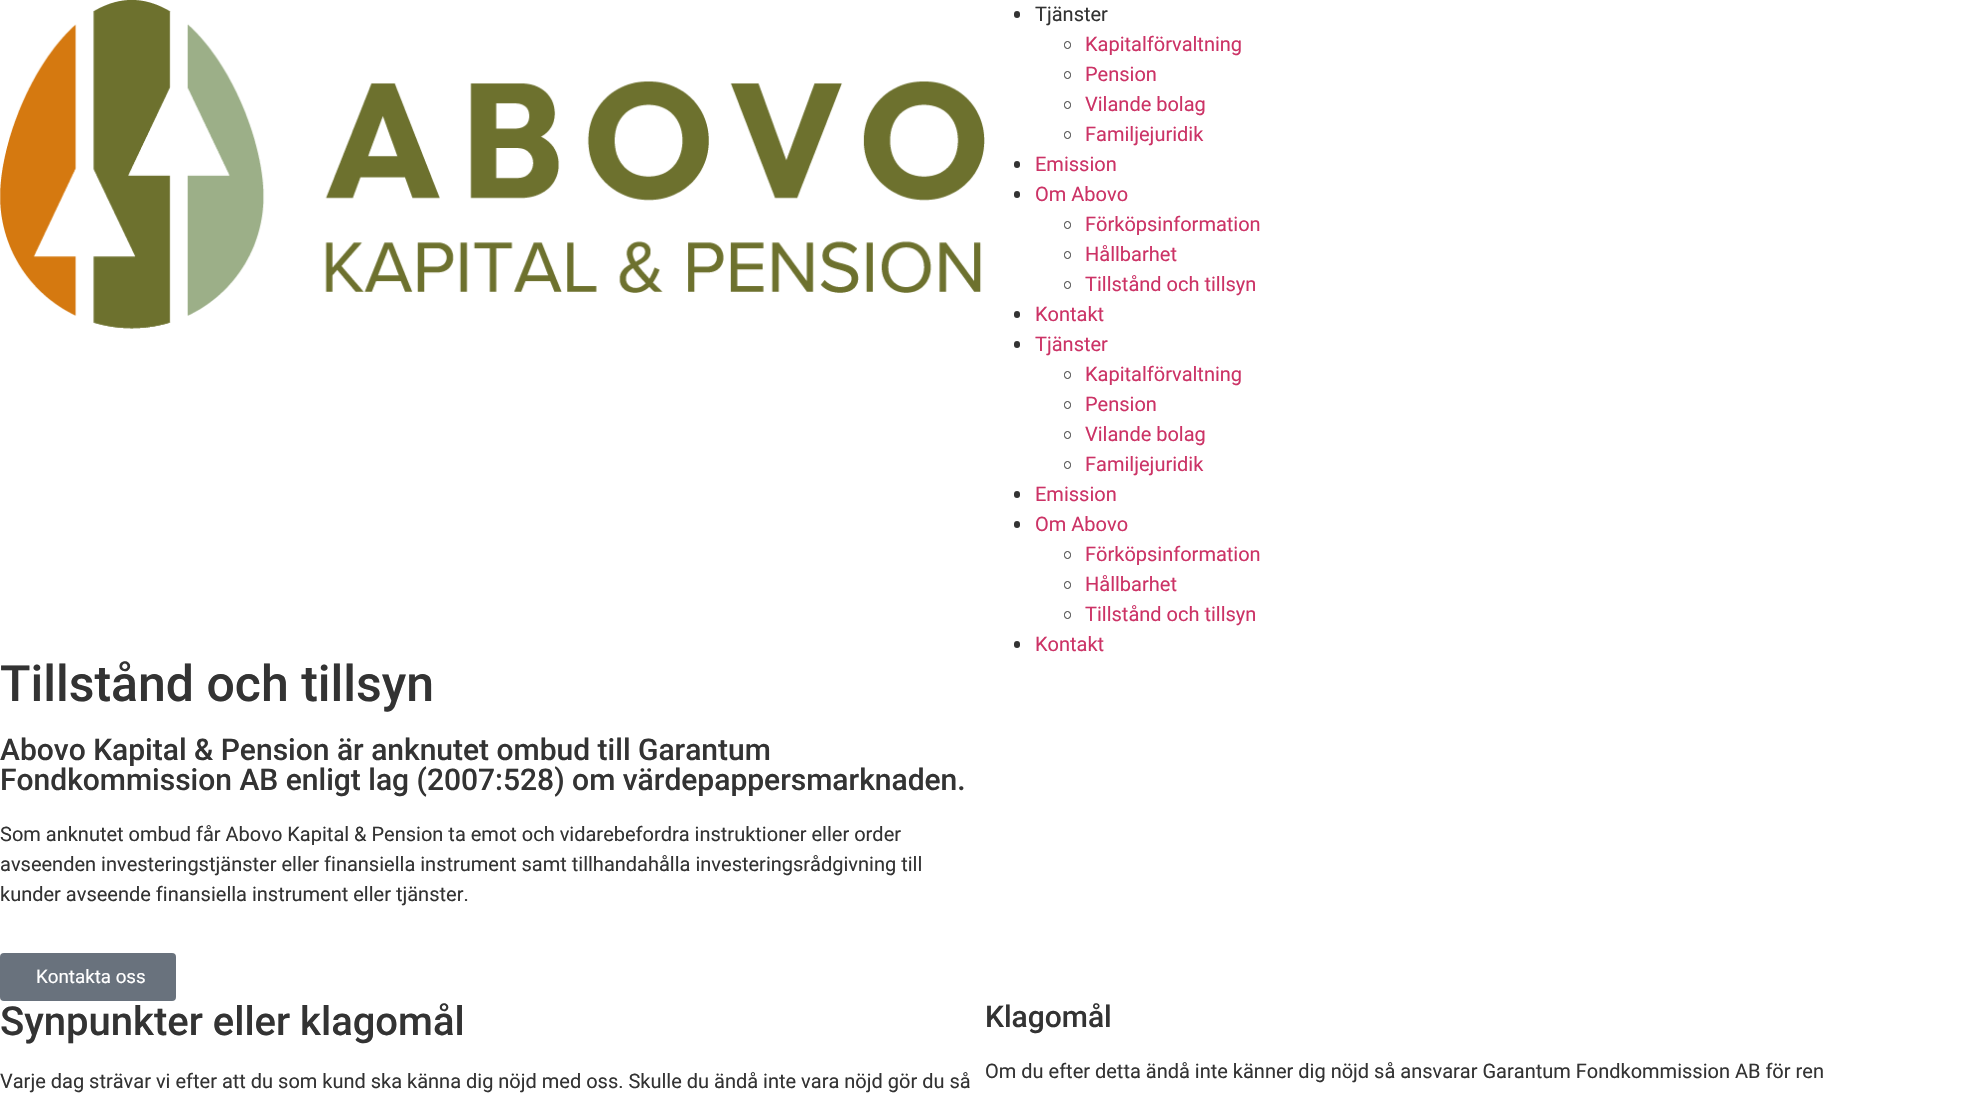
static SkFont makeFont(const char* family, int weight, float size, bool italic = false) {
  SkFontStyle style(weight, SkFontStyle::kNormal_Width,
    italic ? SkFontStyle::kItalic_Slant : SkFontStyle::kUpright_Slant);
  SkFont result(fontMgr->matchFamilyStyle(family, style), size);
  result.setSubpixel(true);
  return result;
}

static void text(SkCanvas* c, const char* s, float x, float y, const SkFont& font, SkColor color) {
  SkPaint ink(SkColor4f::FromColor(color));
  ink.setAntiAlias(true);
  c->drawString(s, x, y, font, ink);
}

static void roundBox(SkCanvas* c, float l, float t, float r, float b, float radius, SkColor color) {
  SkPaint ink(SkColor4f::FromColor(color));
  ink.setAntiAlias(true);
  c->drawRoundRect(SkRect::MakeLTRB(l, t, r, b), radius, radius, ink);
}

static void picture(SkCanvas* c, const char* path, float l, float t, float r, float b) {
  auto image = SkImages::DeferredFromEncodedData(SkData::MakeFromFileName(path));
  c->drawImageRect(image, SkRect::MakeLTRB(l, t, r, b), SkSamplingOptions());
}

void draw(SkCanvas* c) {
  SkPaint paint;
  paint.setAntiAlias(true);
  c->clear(0xffffffff);
  picture(c, "img_01.png", 0, 0, 985, 329);
  roundBox(c, 1014, 11, 1020, 18, 3, 0xff333333);
  SkFont face1 = makeFont("Roboto", 400, 20);
  text(c, "Tjänster", 1035, 21, face1, 0xff333333);
  paint.setStyle(SkPaint::kStroke_Style);
  paint.setStrokeWidth(1);
  paint.setColor(0xff333333);
  c->drawRoundRect(SkRect::MakeLTRB(1064.5f, 41.5f, 1070.5f, 48.5f), 3, 3, paint);
  text(c, "Kapitalförvaltning", 1085, 51, face1, 0xffcc3366);
  c->drawRoundRect(SkRect::MakeLTRB(1064.5f, 71.5f, 1070.5f, 78.5f), 3, 3, paint);
  text(c, "Pension", 1085, 81, face1, 0xffcc3366);
  c->drawRoundRect(SkRect::MakeLTRB(1064.5f, 101.5f, 1070.5f, 108.5f), 3, 3, paint);
  text(c, "Vilande bolag", 1085, 111, face1, 0xffcc3366);
  c->drawRoundRect(SkRect::MakeLTRB(1064.5f, 131.5f, 1070.5f, 138.5f), 3, 3, paint);
  text(c, "Familjejuridik", 1085, 141, face1, 0xffcc3366);
  roundBox(c, 1014, 161, 1020, 168, 3, 0xff333333);
  text(c, "Emission", 1035, 171, face1, 0xffcc3366);
  roundBox(c, 1014, 191, 1020, 198, 3, 0xff333333);
  text(c, "Om Abovo", 1035, 201, face1, 0xffcc3366);
  c->drawRoundRect(SkRect::MakeLTRB(1064.5f, 221.5f, 1070.5f, 228.5f), 3, 3, paint);
  text(c, "Förköpsinformation", 1085, 231, face1, 0xffcc3366);
  c->drawRoundRect(SkRect::MakeLTRB(1064.5f, 251.5f, 1070.5f, 258.5f), 3, 3, paint);
  text(c, "Hållbarhet", 1085, 261, face1, 0xffcc3366);
  c->drawRoundRect(SkRect::MakeLTRB(1064.5f, 281.5f, 1070.5f, 288.5f), 3, 3, paint);
  text(c, "Tillstånd och tillsyn", 1085, 291, face1, 0xffcc3366);
  roundBox(c, 1014, 311, 1020, 318, 3, 0xff333333);
  text(c, "Kontakt", 1035, 321, face1, 0xffcc3366);
  roundBox(c, 1014, 341, 1020, 348, 3, 0xff333333);
  text(c, "Tjänster", 1035, 351, face1, 0xffcc3366);
  c->drawRoundRect(SkRect::MakeLTRB(1064.5f, 371.5f, 1070.5f, 378.5f), 3, 3, paint);
  text(c, "Kapitalförvaltning", 1085, 381, face1, 0xffcc3366);
  c->drawRoundRect(SkRect::MakeLTRB(1064.5f, 401.5f, 1070.5f, 408.5f), 3, 3, paint);
  text(c, "Pension", 1085, 411, face1, 0xffcc3366);
  c->drawRoundRect(SkRect::MakeLTRB(1064.5f, 431.5f, 1070.5f, 438.5f), 3, 3, paint);
  text(c, "Vilande bolag", 1085, 441, face1, 0xffcc3366);
  c->drawRoundRect(SkRect::MakeLTRB(1064.5f, 461.5f, 1070.5f, 468.5f), 3, 3, paint);
  text(c, "Familjejuridik", 1085, 471, face1, 0xffcc3366);
  roundBox(c, 1014, 491, 1020, 498, 3, 0xff333333);
  text(c, "Emission", 1035, 501, face1, 0xffcc3366);
  roundBox(c, 1014, 521, 1020, 528, 3, 0xff333333);
  text(c, "Om Abovo", 1035, 531, face1, 0xffcc3366);
  c->drawRoundRect(SkRect::MakeLTRB(1064.5f, 551.5f, 1070.5f, 558.5f), 3, 3, paint);
  text(c, "Förköpsinformation", 1085, 561, face1, 0xffcc3366);
  c->drawRoundRect(SkRect::MakeLTRB(1064.5f, 581.5f, 1070.5f, 588.5f), 3, 3, paint);
  text(c, "Hållbarhet", 1085, 591, face1, 0xffcc3366);
  c->drawRoundRect(SkRect::MakeLTRB(1064.5f, 611.5f, 1070.5f, 618.5f), 3, 3, paint);
  text(c, "Tillstånd och tillsyn", 1085, 621, face1, 0xffcc3366);
  roundBox(c, 1014, 641, 1020, 648, 3, 0xff333333);
  text(c, "Kontakt", 1035, 651, face1, 0xffcc3366);
  SkFont face2 = makeFont("Roboto", 500, 50);
  text(c, "Tillstånd och tillsyn", 0, 701, face2, 0xff333333);
  SkFont face3 = makeFont("Roboto", 500, 30);
  text(c, "Abovo Kapital & Pension är anknutet ombud till Garantum", 0, 760, face3, 0xff333333);
  text(c, "Fondkommission AB enligt lag (2007:528) om värdepappersmarknaden.", 0, 790, face3, 0xff333333);
  text(c, "Som anknutet ombud får Abovo Kapital & Pension ta emot och vidarebefordra instruktioner eller order", 0, 841, face1, 0xff333333);
  text(c, "avseenden investeringstjänster eller finansiella instrument samt tillhandahålla investeringsrådgivning till", 0, 871, face1, 0xff333333);
  text(c, "kunder avseende finansiella instrument eller tjänster.", 0, 901, face1, 0xff333333);
  roundBox(c, 0, 953, 176, 1001, 4, 0xff69727d);
  SkFont face4 = makeFont("Roboto", 400, 18.75f);
  text(c, "Kontakta oss", 36, 983, face4, 0xffffffff);
  SkFont face5 = makeFont("Roboto", 500, 40);
  text(c, "Synpunkter eller klagomål", 0, 1035, face5, 0xff333333);
  text(c, "Varje dag strävar vi efter att du som kund ska känna dig nöjd med oss. Skulle du ändå inte vara nöjd gör du så", 0, 1088, face1, 0xff333333);
  text(c, "Klagomål", 985, 1027, face3, 0xff333333);
  text(c, "Om du efter detta ändå inte känner dig nöjd så ansvarar Garantum Fondkommission AB för ren", 985, 1078, face1, 0xff333333);
}
